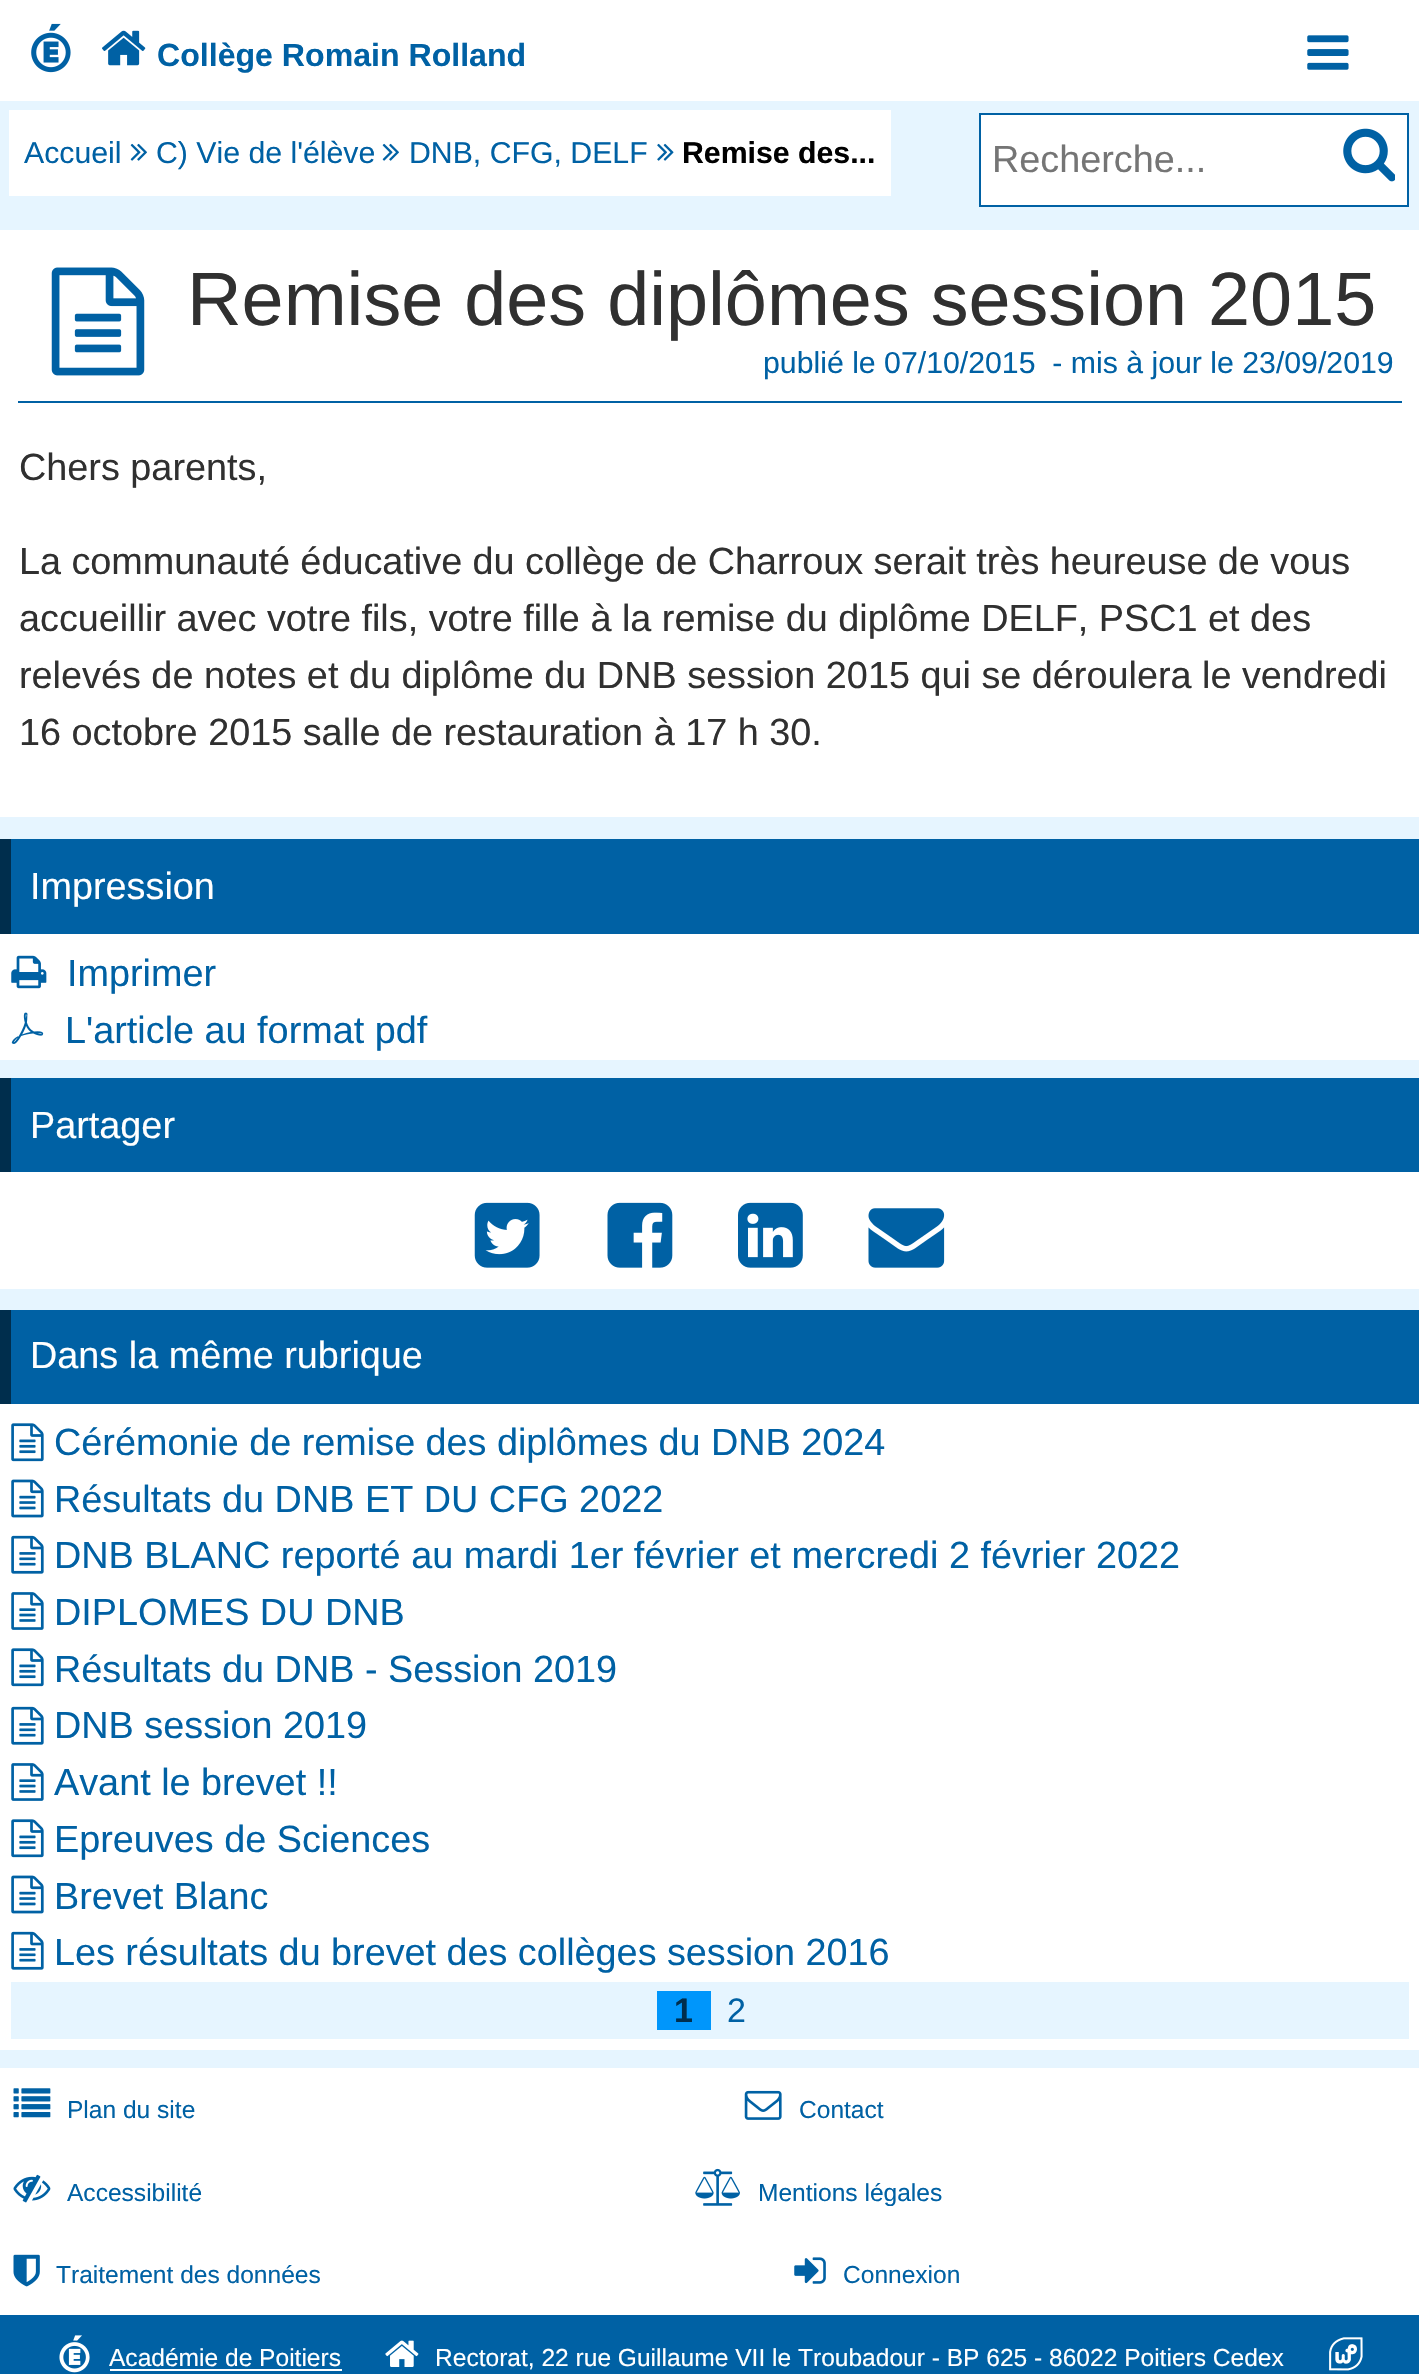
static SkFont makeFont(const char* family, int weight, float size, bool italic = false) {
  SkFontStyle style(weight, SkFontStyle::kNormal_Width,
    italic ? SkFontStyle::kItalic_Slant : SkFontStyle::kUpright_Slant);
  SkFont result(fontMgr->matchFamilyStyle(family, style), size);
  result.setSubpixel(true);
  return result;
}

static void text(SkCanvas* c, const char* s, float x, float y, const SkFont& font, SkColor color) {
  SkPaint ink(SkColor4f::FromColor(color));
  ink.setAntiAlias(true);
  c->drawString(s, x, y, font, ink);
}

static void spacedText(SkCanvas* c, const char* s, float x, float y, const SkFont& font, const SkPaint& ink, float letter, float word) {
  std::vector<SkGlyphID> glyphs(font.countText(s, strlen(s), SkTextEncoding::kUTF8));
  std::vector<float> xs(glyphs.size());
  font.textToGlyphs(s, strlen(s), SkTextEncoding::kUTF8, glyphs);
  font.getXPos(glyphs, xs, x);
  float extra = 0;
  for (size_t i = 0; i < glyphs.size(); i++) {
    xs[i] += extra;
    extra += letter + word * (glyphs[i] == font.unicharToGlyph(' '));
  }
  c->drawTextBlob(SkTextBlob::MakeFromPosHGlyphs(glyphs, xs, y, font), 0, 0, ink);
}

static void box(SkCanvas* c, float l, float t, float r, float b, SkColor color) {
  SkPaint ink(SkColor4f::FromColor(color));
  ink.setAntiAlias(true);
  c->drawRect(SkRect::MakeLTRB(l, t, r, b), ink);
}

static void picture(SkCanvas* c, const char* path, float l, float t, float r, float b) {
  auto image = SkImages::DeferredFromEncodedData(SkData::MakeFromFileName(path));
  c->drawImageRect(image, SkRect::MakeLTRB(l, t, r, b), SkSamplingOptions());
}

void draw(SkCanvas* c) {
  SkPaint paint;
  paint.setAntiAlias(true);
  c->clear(0xffe6f5ff);
  box(c, 0, 0, 1419, 101, 0xffffffff);
  picture(c, "img_01.png", 31, 23, 71, 73);
  picture(c, "img_02.png", 102, 30, 146, 66);
  SkFont face1 = makeFont("Liberation Sans", 700, 32.1f);
  text(c, "Collège Romain Rolland", 157, 66, face1, 0xff0061a4);
  picture(c, "img_03.png", 1307, 35, 1349, 70);
  box(c, 9, 110, 891, 196, 0xffffffff);
  SkFont face2 = makeFont("Liberation Sans", 400, 30.25f);
  text(c, "Accueil", 24, 163, face2, 0xff0061a4);
  picture(c, "img_04.png", 130, 143, 147, 161);
  text(c, "C) Vie de l'élève", 156, 163, face2, 0xff0061a4);
  picture(c, "img_04.png", 382, 143, 399, 161);
  text(c, "DNB, CFG, DELF", 409, 163, face2, 0xff0061a4);
  picture(c, "img_05.png", 657, 143, 674, 161);
  SkFont face3 = makeFont("Liberation Sans", 700, 30.25f);
  text(c, "Remise des...", 682, 163, face3, 0xff000000);
  paint.setColor(0xffffffff);
  c->drawRect(SkRect::MakeLTRB(980, 114, 1408, 206), paint);
  paint.setStyle(SkPaint::kStroke_Style);
  paint.setStrokeWidth(2);
  paint.setColor(0xff0061a4);
  c->drawRect(SkRect::MakeLTRB(980, 114, 1408, 206), paint);
  SkFont face4 = makeFont("Liberation Sans", 400, 37.8f);
  text(c, "Recherche...", 992, 172, face4, 0xff757575);
  picture(c, "img_06.png", 1343, 128, 1395, 182);
  box(c, 0, 230, 1419, 817, 0xffffffff);
  picture(c, "img_07.png", 51, 267, 145, 376);
  SkFont face5 = makeFont("Liberation Sans", 400, 75.6f);
  text(c, "Remise des diplômes session 2015", 187, 325, face5, 0xff303030);
  text(c, "publié le 07/10/2015  - mis à jour le 23/09/2019", 763, 373, face2, 0xff0061a4);
  box(c, 18, 401, 1402, 403, 0xff0061a4);
  text(c, "Chers parents,", 19, 480, face4, 0xff303030);
  paint.setStyle(SkPaint::kFill_Style);
  paint.setColor(0xff303030);
  spacedText(c, "La communauté éducative du collège de Charroux serait très heureuse de vous", 19, 574, face4, paint, 0, -0.1f);
  text(c, "accueillir avec votre fils, votre fille à la remise du diplôme DELF, PSC1 et des", 19, 631, face4, 0xff303030);
  text(c, "relevés de notes et du diplôme du DNB session 2015 qui se déroulera le vendredi", 19, 688, face4, 0xff303030);
  text(c, "16 octobre 2015 salle de restauration à 17 h 30.", 19, 745, face4, 0xff303030);
  box(c, 0, 934, 1419, 1060, 0xffffffff);
  box(c, 11, 839, 1419, 934, 0xff0061a4);
  box(c, 0, 839, 11, 934, 0xff002e4d);
  text(c, "Impression", 30, 899, face4, 0xffffffff);
  picture(c, "img_08.png", 11, 955, 47, 989);
  text(c, "Imprimer", 67, 986, face4, 0xff0061a4);
  picture(c, "img_09.png", 11, 1012, 44, 1044);
  text(c, "L'article au format pdf", 65, 1043, face4, 0xff0061a4);
  box(c, 0, 1172, 1419, 1289, 0xffffffff);
  box(c, 11, 1078, 1419, 1172, 0xff0061a4);
  box(c, 0, 1078, 11, 1172, 0xff002e4d);
  text(c, "Partager", 30, 1138, face4, 0xffffffff);
  picture(c, "img_10.png", 474, 1202, 540, 1268);
  picture(c, "img_11.png", 607, 1202, 673, 1268);
  picture(c, "img_12.png", 738, 1202, 803, 1268);
  picture(c, "img_13.png", 868, 1208, 945, 1268);
  box(c, 0, 1404, 1419, 2050, 0xffffffff);
  box(c, 11, 1310, 1419, 1404, 0xff0061a4);
  box(c, 0, 1310, 11, 1404, 0xff002e4d);
  text(c, "Dans la même rubrique", 30, 1368, face4, 0xffffffff);
  picture(c, "img_14.png", 11, 1423, 44, 1462);
  paint.setColor(0xff0061a4);
  spacedText(c, "Cérémonie de remise des diplômes du DNB 2024", 54, 1455, face4, paint, 0, -0.1f);
  picture(c, "img_15.png", 11, 1479, 44, 1518);
  text(c, "Résultats du DNB ET DU CFG 2022", 54, 1512, face4, 0xff0061a4);
  picture(c, "img_16.png", 11, 1535, 44, 1574);
  text(c, "DNB BLANC reporté au mardi 1er février et mercredi 2 février 2022", 54, 1568, face4, 0xff0061a4);
  picture(c, "img_17.png", 11, 1592, 44, 1630);
  text(c, "DIPLOMES DU DNB", 54, 1625, face4, 0xff0061a4);
  picture(c, "img_14.png", 11, 1648, 44, 1687);
  text(c, "Résultats du DNB - Session 2019", 54, 1682, face4, 0xff0061a4);
  picture(c, "img_16.png", 11, 1706, 44, 1745);
  text(c, "DNB session 2019", 54, 1738, face4, 0xff0061a4);
  picture(c, "img_17.png", 11, 1763, 44, 1801);
  text(c, "Avant le brevet !!", 54, 1795, face4, 0xff0061a4);
  picture(c, "img_14.png", 11, 1819, 44, 1858);
  text(c, "Epreuves de Sciences", 54, 1852, face4, 0xff0061a4);
  picture(c, "img_15.png", 11, 1875, 44, 1914);
  text(c, "Brevet Blanc", 54, 1909, face4, 0xff0061a4);
  picture(c, "img_16.png", 11, 1931, 44, 1970);
  spacedText(c, "Les résultats du brevet des collèges session 2016", 54, 1965, face4, paint, 0, -0.1f);
  box(c, 11, 1982, 1409, 2039, 0xffe6f5ff);
  box(c, 657, 1991, 711, 2030, 0xff0096fb);
  SkFont face6 = makeFont("Liberation Sans", 700, 34);
  text(c, "1", 674, 2022, face6, 0xff002e4d);
  SkFont face7 = makeFont("Liberation Sans", 400, 34);
  text(c, "2", 727, 2022, face7, 0xff0061a4);
  box(c, 0, 2068, 1419, 2315, 0xffffffff);
  picture(c, "img_18.png", 13, 2088, 51, 2118);
  SkFont face8 = makeFont("Liberation Sans", 400, 24.55f);
  text(c, "Plan du site", 67, 2118, face8, 0xff0061a4);
  picture(c, "img_19.png", 744, 2090, 782, 2120);
  text(c, "Contact", 799, 2118, face8, 0xff0061a4);
  picture(c, "img_20.png", 13, 2174, 51, 2203);
  text(c, "Accessibilité", 67, 2201, face8, 0xff0061a4);
  picture(c, "img_21.png", 695, 2168, 740, 2206);
  text(c, "Mentions légales", 758, 2201, face8, 0xff0061a4);
  picture(c, "img_22.png", 13, 2254, 40, 2287);
  text(c, "Traitement des données", 56, 2283, face8, 0xff0061a4);
  picture(c, "img_23.png", 794, 2257, 826, 2284);
  text(c, "Connexion", 843, 2283, face8, 0xff0061a4);
  box(c, 0, 2315, 1419, 2374, 0xff0061a4);
  picture(c, "img_24.png", 59, 2335, 90, 2373);
  text(c, "Académie de Poitiers", 109, 2366, face8, 0xffffffff);
  box(c, 110, 2369, 342, 2371, 0xffffffff);
  picture(c, "img_25.png", 385, 2340, 419, 2367);
  text(c, "Rectorat, 22 rue Guillaume VII le Troubadour - BP 625 - 86022 Poitiers Cedex", 435, 2366, face8, 0xffffffff);
  picture(c, "img_26.png", 1329, 2337, 1363, 2371);
}
